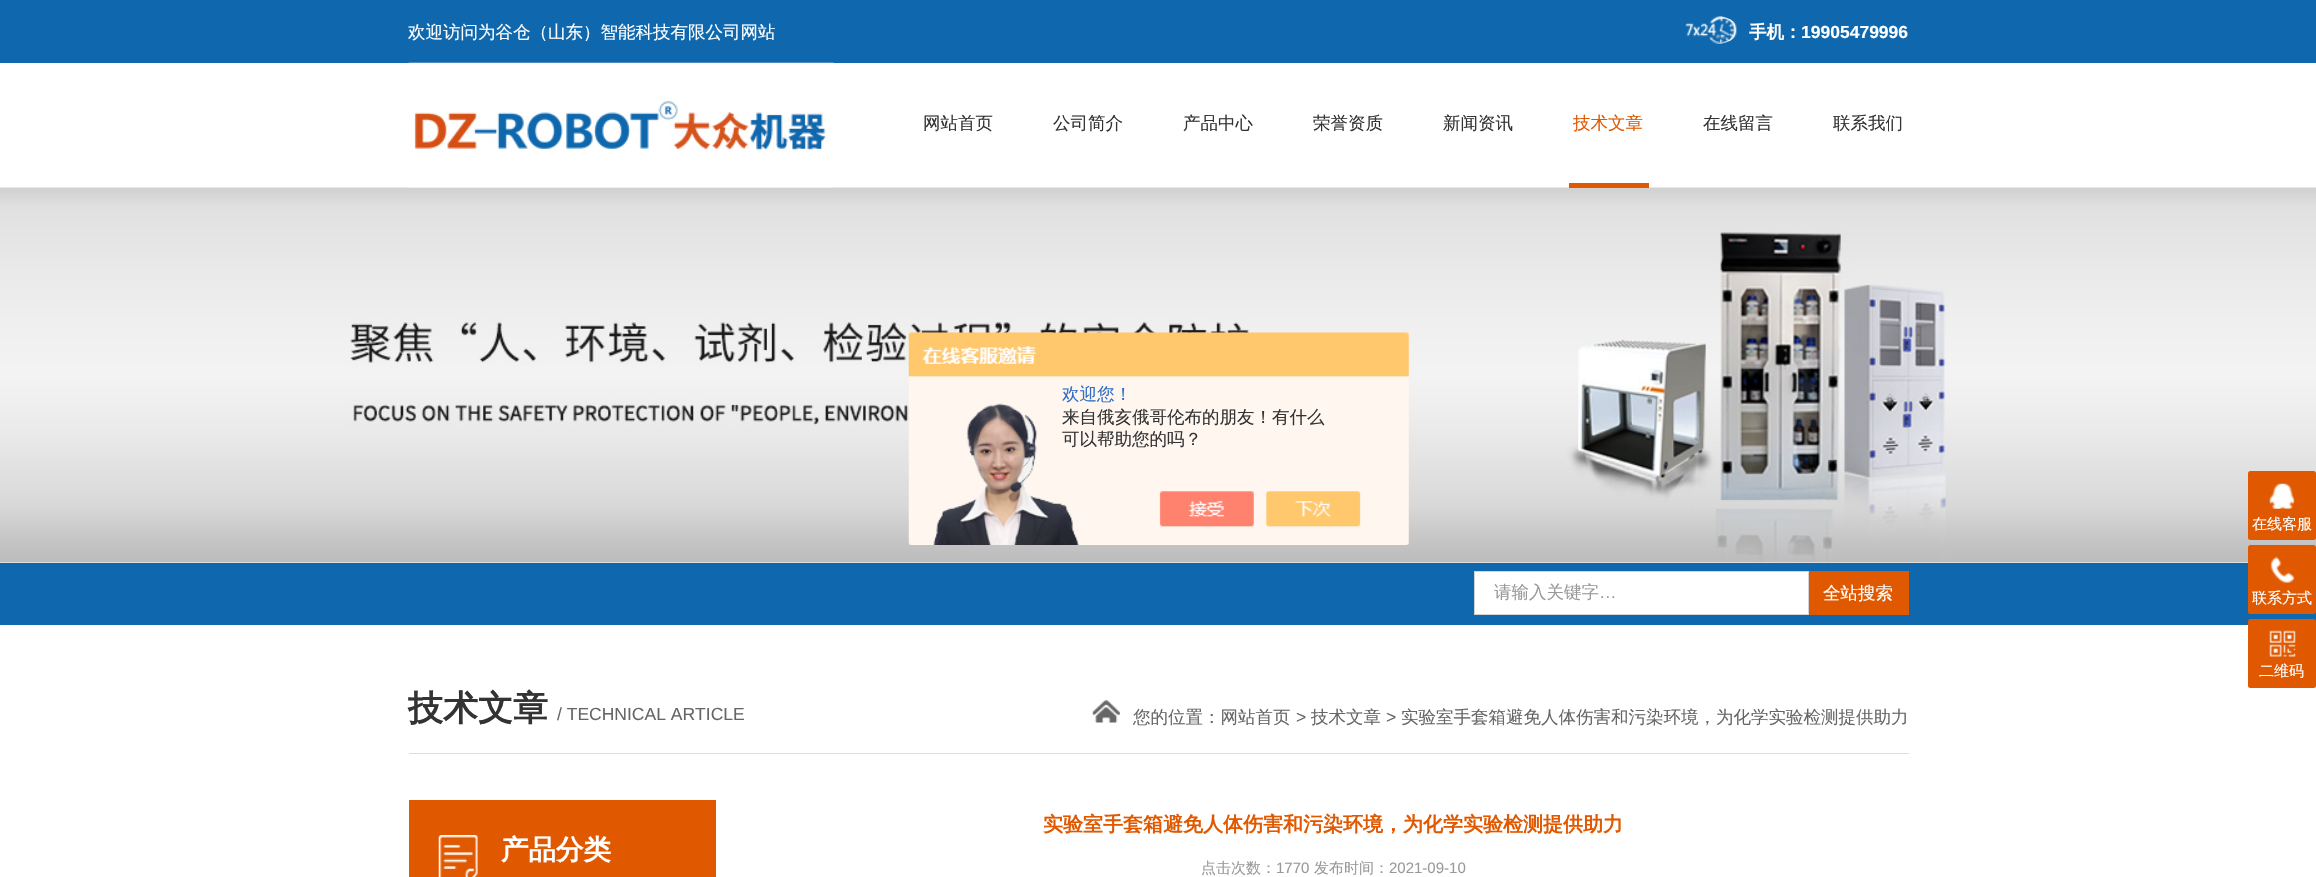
static SkFont makeFont(const char* family, int weight, float size, bool italic = false) {
  SkFontStyle style(weight, SkFontStyle::kNormal_Width,
    italic ? SkFontStyle::kItalic_Slant : SkFontStyle::kUpright_Slant);
  SkFont result(fontMgr->matchFamilyStyle(family, style), size);
  result.setSubpixel(true);
  return result;
}

static void text(SkCanvas* c, const char* s, float x, float y, const SkFont& font, SkColor color) {
  SkPaint ink(SkColor4f::FromColor(color));
  ink.setAntiAlias(true);
  c->drawString(s, x, y, font, ink);
}

static void box(SkCanvas* c, float l, float t, float r, float b, SkColor color) {
  SkPaint ink(SkColor4f::FromColor(color));
  ink.setAntiAlias(true);
  c->drawRect(SkRect::MakeLTRB(l, t, r, b), ink);
}

static void roundBox(SkCanvas* c, float l, float t, float r, float b, float radius, SkColor color) {
  SkPaint ink(SkColor4f::FromColor(color));
  ink.setAntiAlias(true);
  c->drawRoundRect(SkRect::MakeLTRB(l, t, r, b), radius, radius, ink);
}

static void picture(SkCanvas* c, const char* path, float l, float t, float r, float b) {
  auto image = SkImages::DeferredFromEncodedData(SkData::MakeFromFileName(path));
  c->drawImageRect(image, SkRect::MakeLTRB(l, t, r, b), SkSamplingOptions());
}

void draw(SkCanvas* c) {
  SkPaint paint;
  paint.setAntiAlias(true);
  c->clear(0xffffffff);
  box(c, 0, 0, 2316, 63, 0xff0f68ad);
  SkFont face1 = makeFont("WenQuanYi Zen Hei", 500, 17.5f);
  text(c, "欢迎访问为谷仓（山东）智能科技有限公司网站", 408, 38, face1, 0xffffffff);
  picture(c, "img_01.png", 1685, 16, 1737, 44);
  SkFont face2 = makeFont("WenQuanYi Zen Hei", 700, 17.5f);
  text(c, "手机：", 1749, 38, face2, 0xffffffff);
  SkFont face3 = makeFont("Liberation Sans", 700, 17.5f);
  text(c, "19905479996", 1801, 38, face3, 0xffffffff);
  picture(c, "img_03.png", 0, 187, 2316, 563);
  picture(c, "img_02.png", 408, 62, 834, 188);
  text(c, "网站首页", 923, 129, face1, 0xff333333);
  text(c, "公司简介", 1053, 129, face1, 0xff333333);
  text(c, "产品中心", 1183, 129, face1, 0xff333333);
  text(c, "荣誉资质", 1313, 129, face1, 0xff333333);
  text(c, "新闻资讯", 1443, 129, face1, 0xff333333);
  box(c, 1569, 183, 1649, 188, 0xffe05800);
  text(c, "技术文章", 1573, 129, face1, 0xffe05800);
  text(c, "在线留言", 1703, 129, face1, 0xff333333);
  text(c, "联系我们", 1833, 129, face1, 0xff333333);
  box(c, 0, 563, 2316, 625, 0xff0f68ad);
  paint.setColor(0xffffffff);
  c->drawRect(SkRect::MakeLTRB(1474.5f, 571.5f, 1808.5f, 614.5f), paint);
  paint.setStyle(SkPaint::kStroke_Style);
  paint.setStrokeWidth(1);
  paint.setColor(0xffd3d4d4);
  c->drawRect(SkRect::MakeLTRB(1474.5f, 571.5f, 1808.5f, 614.5f), paint);
  text(c, "请输入关键字", 1494, 598, face1, 0xff999999);
  SkFont face4 = makeFont("Liberation Sans", 400, 17.5f);
  text(c, "…", 1599, 598, face4, 0xff999999);
  box(c, 1809, 571, 1909, 615, 0xffe05800);
  text(c, "全站搜索", 1823, 599, face1, 0xffffffff);
  roundBox(c, 2248, 471, 2316, 540, 2.5f, 0xffe05800);
  picture(c, "img_04.png", 2269, 483, 2295, 509);
  SkFont face5 = makeFont("WenQuanYi Zen Hei", 500, 15);
  text(c, "在线客服", 2252, 529, face5, 0xffffffff);
  roundBox(c, 2248, 545, 2316, 614, 2.5f, 0xffe05800);
  picture(c, "img_05.png", 2270, 556, 2295, 583);
  text(c, "联系方式", 2252, 603, face5, 0xffffffff);
  roundBox(c, 2248, 619, 2316, 688, 2.5f, 0xffe05800);
  picture(c, "img_06.png", 2269, 630, 2296, 657);
  text(c, "二维码", 2259, 676, face5, 0xffffffff);
  box(c, 409, 753, 1909, 754, 0xffdddddd);
  SkFont face6 = makeFont("WenQuanYi Zen Hei", 700, 35);
  text(c, "技术文章", 408, 720, face6, 0xff333333);
  text(c, "/ TECHNICAL ARTICLE", 557, 720, face4, 0xff666666);
  picture(c, "img_07.png", 1092, 700, 1120, 723);
  text(c, "您的位置：网站首页", 1133, 723, face1, 0xff666666);
  text(c, ">", 1296, 723, face4, 0xff666666);
  text(c, "技术文章", 1311, 723, face1, 0xff666666);
  text(c, ">", 1386, 723, face4, 0xff666666);
  text(c, "实验室手套箱避免人体伤害和污染环境，为化学实验检测提供助力", 1401, 723, face1, 0xff666666);
  box(c, 409, 800, 716, 877, 0xffe05800);
  picture(c, "img_08.png", 438, 835, 478, 877);
  SkFont face7 = makeFont("WenQuanYi Zen Hei", 700, 27.5f);
  text(c, "产品分类", 501, 859, face7, 0xffffffff);
  SkFont face8 = makeFont("WenQuanYi Zen Hei", 700, 20);
  text(c, "实验室手套箱避免人体伤害和污染环境，为化学实验检测提供助力", 1043, 831, face8, 0xffe05800);
  text(c, "点击次数：", 1201, 873, face5, 0xff999999);
  SkFont face9 = makeFont("Liberation Sans", 400, 15);
  text(c, "1770", 1276, 873, face9, 0xff999999);
  text(c, "发布时间：", 1314, 873, face5, 0xff999999);
  text(c, "2021-09-10", 1389, 873, face9, 0xff999999);
  picture(c, "img_09.png", 908, 332, 1409, 545);
  text(c, "欢迎您！", 1062, 400, face1, 0xff2e6ec6);
  text(c, "来自俄亥俄哥伦布的朋友！有什么", 1062, 423, face1, 0xff333333);
  text(c, "可以帮助您的吗？", 1062, 445, face1, 0xff333333);
}
